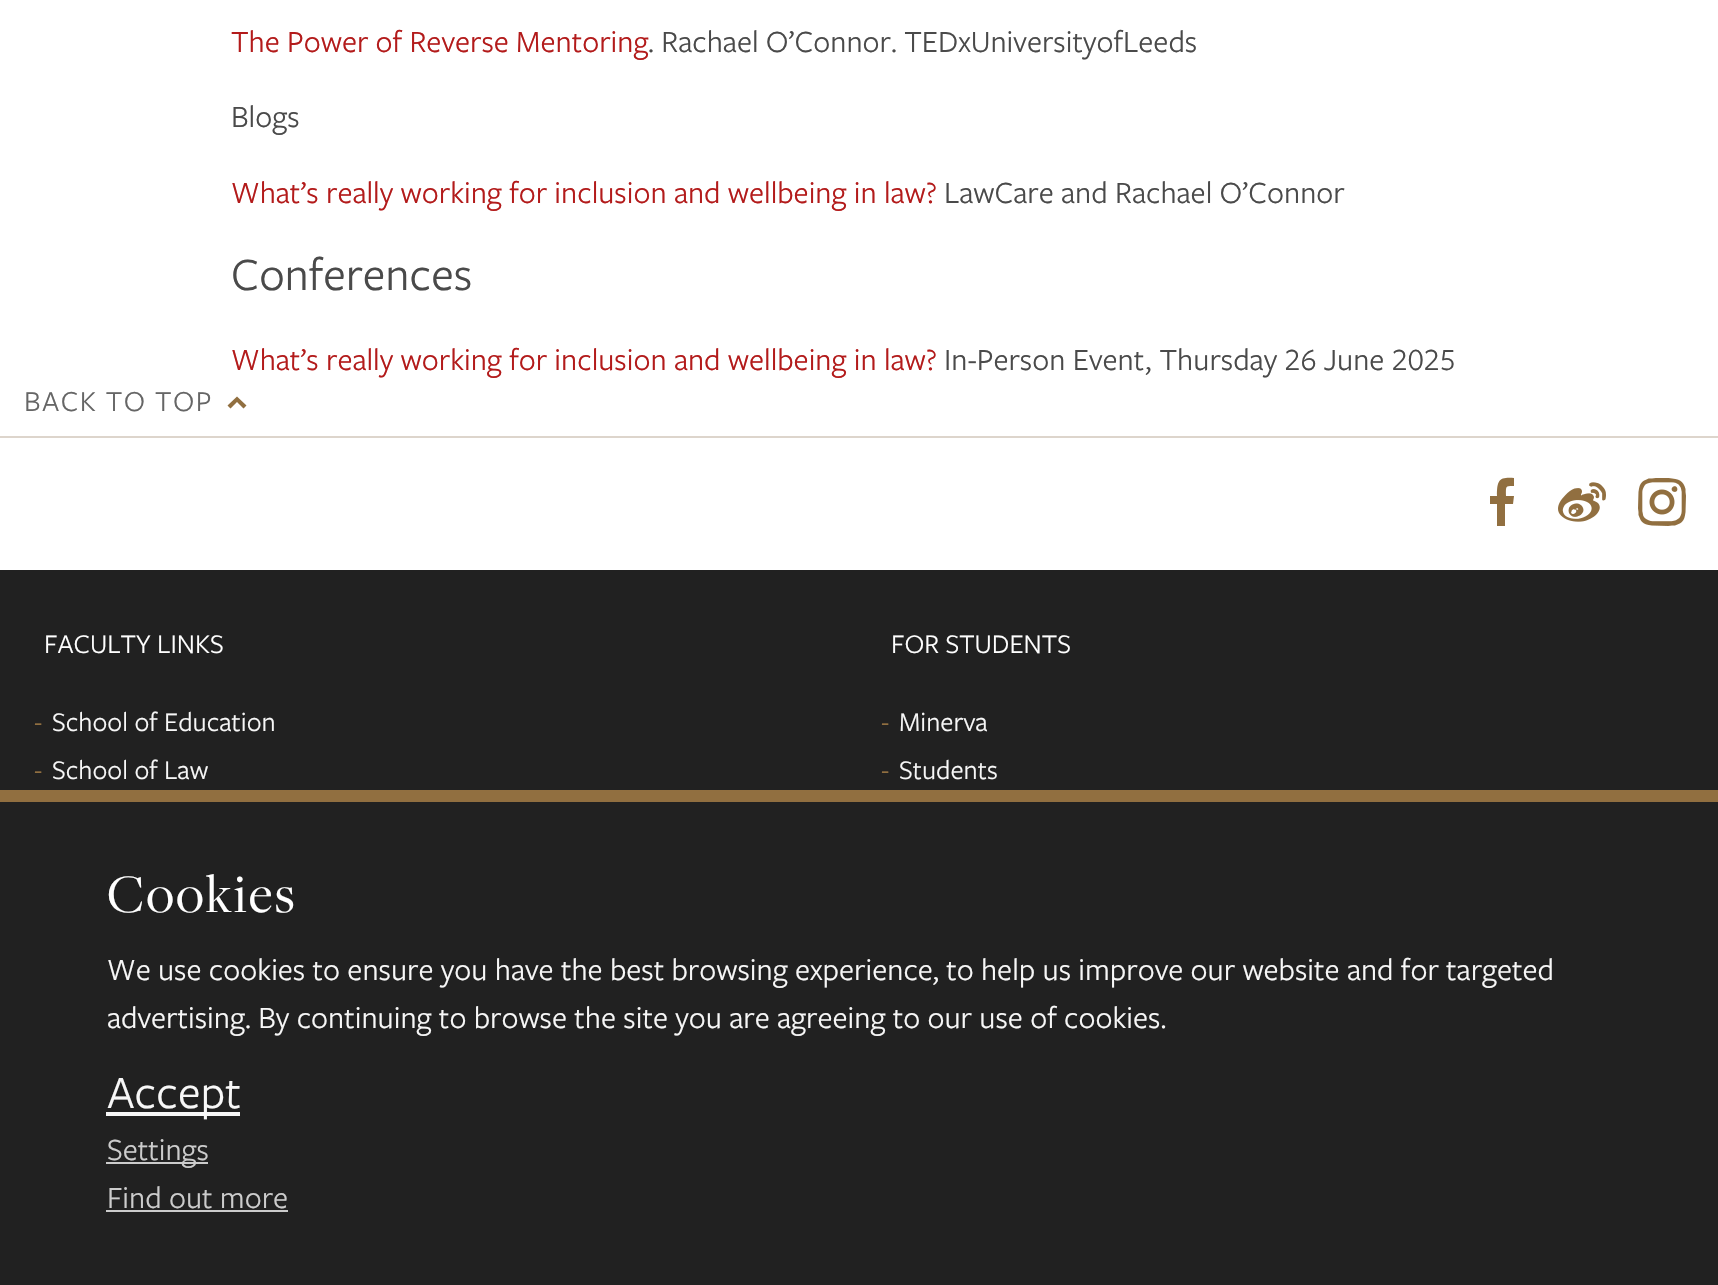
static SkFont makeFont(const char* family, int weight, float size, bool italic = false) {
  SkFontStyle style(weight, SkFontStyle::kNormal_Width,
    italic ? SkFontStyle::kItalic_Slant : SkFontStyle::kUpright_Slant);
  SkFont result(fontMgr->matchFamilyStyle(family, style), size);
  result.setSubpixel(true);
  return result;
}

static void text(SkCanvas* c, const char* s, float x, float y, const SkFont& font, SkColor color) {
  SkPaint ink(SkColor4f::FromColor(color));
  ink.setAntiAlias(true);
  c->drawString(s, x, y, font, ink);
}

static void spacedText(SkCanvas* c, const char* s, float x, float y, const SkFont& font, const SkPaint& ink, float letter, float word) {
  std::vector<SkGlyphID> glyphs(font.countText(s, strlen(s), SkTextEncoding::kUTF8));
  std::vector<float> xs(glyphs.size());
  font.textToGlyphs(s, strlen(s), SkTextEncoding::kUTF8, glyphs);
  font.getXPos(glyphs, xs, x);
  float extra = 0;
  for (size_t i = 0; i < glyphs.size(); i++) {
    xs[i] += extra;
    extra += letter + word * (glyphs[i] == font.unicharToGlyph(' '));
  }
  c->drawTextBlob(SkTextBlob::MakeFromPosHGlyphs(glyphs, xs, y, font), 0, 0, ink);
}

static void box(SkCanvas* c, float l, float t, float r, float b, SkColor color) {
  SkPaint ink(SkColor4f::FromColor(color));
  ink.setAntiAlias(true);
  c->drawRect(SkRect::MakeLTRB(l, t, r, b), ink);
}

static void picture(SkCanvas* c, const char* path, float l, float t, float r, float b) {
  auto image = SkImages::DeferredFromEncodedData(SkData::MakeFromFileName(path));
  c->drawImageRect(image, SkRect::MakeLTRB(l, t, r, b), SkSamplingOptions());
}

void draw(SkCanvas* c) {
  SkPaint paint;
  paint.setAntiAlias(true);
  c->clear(0xffffffff);
  SkFont face1 = makeFont("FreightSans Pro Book", 400, 32);
  text(c, "The Power of Reverse Mentoring", 231, 52, face1, 0xffb31b1b);
  text(c, ". Rachael O’Connor. TEDxUniversityofLeeds", 648, 52, face1, 0xff4a4a4a);
  text(c, "Blogs", 231, 127, face1, 0xff4a4a4a);
  text(c, "What’s really working for inclusion and wellbeing in law?", 231, 203, face1, 0xffb31b1b);
  text(c, "LawCare and Rachael O’Connor", 944, 203, face1, 0xff4a4a4a);
  SkFont face2 = makeFont("FreightSans Pro Book", 400, 48);
  text(c, "Conferences", 231, 290, face2, 0xff4a4a4a);
  text(c, "What’s really working for inclusion and wellbeing in law?", 231, 370, face1, 0xffb31b1b);
  SkFont face3 = makeFont("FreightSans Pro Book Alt", 400, 32);
  text(c, "In-Person Event, Thursday 26 June 2025", 944, 370, face3, 0xff4a4a4a);
  SkFont face4 = makeFont("FreightSans Pro Book", 400, 30);
  paint.setColor(0xff666666);
  spacedText(c, "BACK TO TOP", 24, 411, face4, paint, 1.5f, 0);
  paint.setColor(0xff916f40);
  c->drawPath(SkPathBuilder().moveTo(243.5f, 408.5f).lineTo(237, 402).lineTo(230.5f, 408.5f).lineTo(227.5f, 405.5f).lineTo(237, 396.5f).lineTo(246.5f, 405.5f).close().detach(), paint);
  box(c, 0, 436, 1718, 438, 0xffddd5cc);
  c->drawPath(SkPathBuilder().moveTo(1513, 504).lineTo(1514, 496).lineTo(1506, 496).cubicTo(1506, 486, 1505, 486, 1514, 486).lineTo(1514, 478).cubicTo(1499, 477, 1497, 480, 1497, 496).lineTo(1490, 496).lineTo(1490, 504).lineTo(1497, 504).lineTo(1497, 526).lineTo(1505, 526).lineTo(1505, 504).close().detach(), paint);
  picture(c, "img_01.png", 1558, 482, 1606, 522);
  picture(c, "img_02.png", 1638, 478, 1686, 526);
  box(c, 0, 570, 1718, 790, 0xff212121);
  SkFont face5 = makeFont("FreightSans Pro Book", 400, 28);
  text(c, "FACULTY LINKS", 44, 653, face5, 0xffffffff);
  text(c, "-", 34, 731, face5, 0xff916f40);
  text(c, "School of Education", 52, 731, face5, 0xfff7f7f7);
  text(c, "-", 34, 779, face5, 0xff916f40);
  text(c, "School of Law", 52, 779, face5, 0xfff7f7f7);
  text(c, "FOR STUDENTS", 891, 653, face5, 0xffffffff);
  text(c, "-", 881, 731, face5, 0xff916f40);
  text(c, "Minerva", 899, 731, face5, 0xfff7f7f7);
  text(c, "-", 881, 779, face5, 0xff916f40);
  text(c, "Students", 899, 779, face5, 0xfff7f7f7);
  box(c, 0, 802, 1718, 1285, 0xff212121);
  box(c, 0, 790, 1718, 802, 0xff916f40);
  SkFont face6 = makeFont("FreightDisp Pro", 400, 56);
  paint.setColor(0xffffffff);
  spacedText(c, "Cookies", 107, 912, face6, paint, 2, 0);
  text(c, "We use cookies to ensure you have the best browsing experience, to help us improve our website and for targeted", 107, 980, face1, 0xfff7f7f7);
  text(c, "advertising. By continuing to browse the site you are agreeing to our use of cookies.", 107, 1028, face1, 0xfff7f7f7);
  box(c, 106, 1112, 240, 1116, 0xfff7f7f7);
  text(c, "Accept", 107, 1108, face2, 0xfff7f7f7);
  box(c, 106, 1162, 208, 1164, 0xffcccccc);
  text(c, "Settings", 107, 1160, face1, 0xffcccccc);
  text(c, "Find out more", 107, 1208, face1, 0xffcccccc);
  box(c, 106, 1210, 288, 1212, 0xffcccccc);
}
